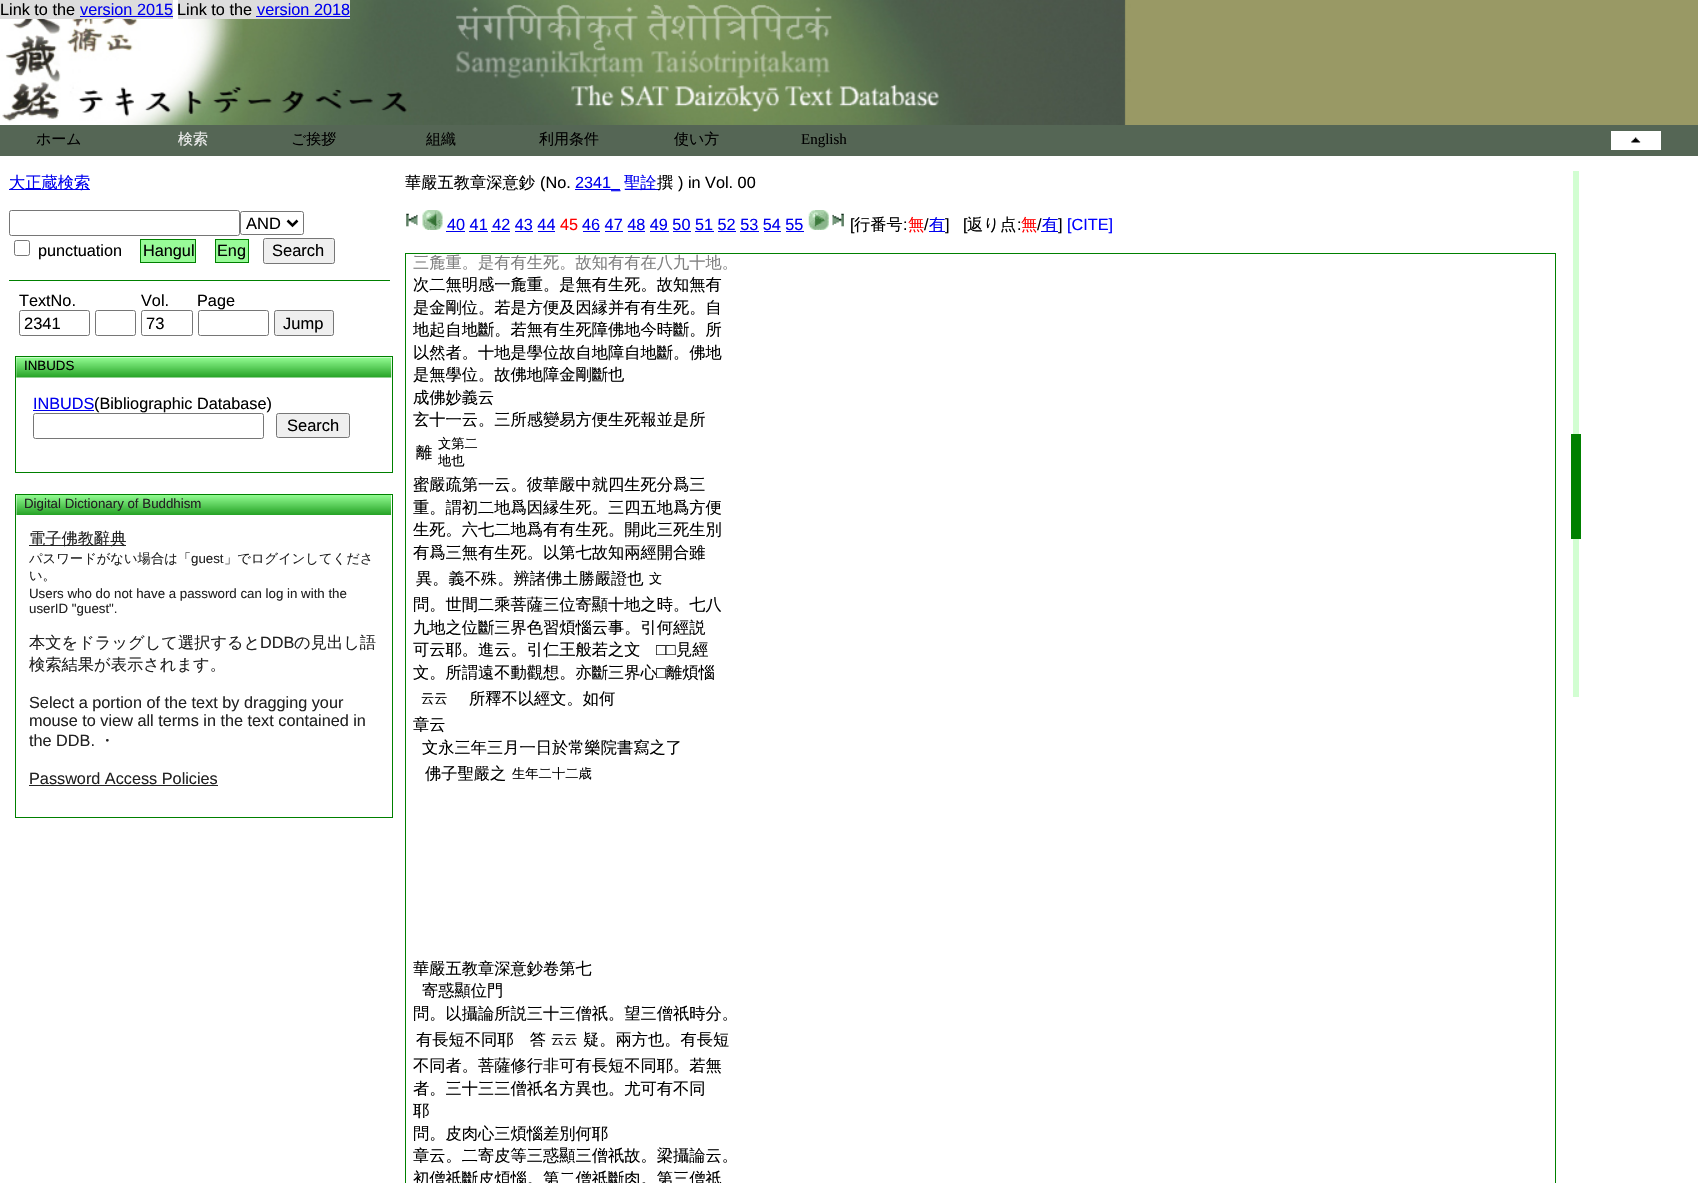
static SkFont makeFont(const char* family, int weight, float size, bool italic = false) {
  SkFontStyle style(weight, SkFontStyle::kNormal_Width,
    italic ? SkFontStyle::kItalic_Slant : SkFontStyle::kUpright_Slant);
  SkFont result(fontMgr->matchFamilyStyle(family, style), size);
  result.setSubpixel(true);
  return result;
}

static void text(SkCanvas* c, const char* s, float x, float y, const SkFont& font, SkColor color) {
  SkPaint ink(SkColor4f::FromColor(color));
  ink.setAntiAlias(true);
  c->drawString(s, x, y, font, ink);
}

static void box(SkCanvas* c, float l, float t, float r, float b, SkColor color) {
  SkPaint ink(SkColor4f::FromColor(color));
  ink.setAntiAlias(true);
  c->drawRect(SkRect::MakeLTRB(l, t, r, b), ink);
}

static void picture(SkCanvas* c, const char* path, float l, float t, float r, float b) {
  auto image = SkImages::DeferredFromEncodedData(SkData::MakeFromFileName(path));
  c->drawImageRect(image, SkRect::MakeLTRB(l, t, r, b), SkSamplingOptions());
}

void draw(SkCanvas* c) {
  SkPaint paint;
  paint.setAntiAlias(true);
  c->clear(0xffffffff);
  picture(c, "img_01.png", 0, 0, 1698, 125);
  box(c, 0, 0, 173, 19, 0xffdddddd);
  SkFont face1 = makeFont("Liberation Sans", 400, 16.25f);
  text(c, "Link to the", 0, 15, face1, 0xff000000);
  text(c, "version 2015", 80, 15, face1, 0xff0000ee);
  box(c, 80, 16, 173, 17, 0xff0000ee);
  box(c, 178, 0, 350, 19, 0xffdddddd);
  text(c, "Link to the", 177, 15, face1, 0xff000000);
  text(c, "version 2018", 257, 15, face1, 0xff0000ee);
  box(c, 256, 16, 350, 17, 0xff0000ee);
  box(c, 0, 125, 1698, 156, 0xff556655);
  SkFont face2 = makeFont("WenQuanYi Zen Hei", 500, 15);
  text(c, "ホーム", 36, 144, face2, 0xff000000);
  text(c, "検索", 178, 144, face2, 0xffeeeeee);
  text(c, "ご挨拶", 291, 144, face2, 0xff000000);
  text(c, "組織", 426, 144, face2, 0xff000000);
  text(c, "利用条件", 539, 144, face2, 0xff000000);
  text(c, "使い方", 674, 144, face2, 0xff000000);
  SkFont face3 = makeFont("Liberation Serif", 400, 15);
  text(c, "English", 801, 144, face3, 0xff000000);
  box(c, 1611, 131, 1661, 150, 0xffffffff);
  picture(c, "img_02.png", 1631, 137, 1641, 143);
  box(c, 9, 189, 90, 190, 0xff0000ee);
  SkFont face4 = makeFont("WenQuanYi Zen Hei", 500, 16.25f);
  text(c, "大正蔵検索", 9, 188, face4, 0xff0000ee);
  paint.setStyle(SkPaint::kStroke_Style);
  paint.setStrokeWidth(1);
  paint.setColor(0xff767676);
  c->drawRoundRect(SkRect::MakeLTRB(9.5f, 210.5f, 239.5f, 235.5f), 2, 2, paint);
  c->drawRoundRect(SkRect::MakeLTRB(240.5f, 211.5f, 303.5f, 234.5f), 2, 2, paint);
  paint.setStrokeWidth(2.5f);
  paint.setColor(0xff000000);
  c->drawPath(SkPathBuilder().moveTo(287.5f, 220.5f).lineTo(292.5f, 225.5f).lineTo(297.5f, 220.5f).detach(), paint);
  SkFont face5 = makeFont("Liberation Sans", 400, 16.5f);
  text(c, "AND", 246, 229, face5, 0xff000000);
  paint.setStrokeWidth(1);
  paint.setColor(0xff767676);
  c->drawRoundRect(SkRect::MakeLTRB(14.5f, 240.5f, 29.5f, 255.5f), 2, 2, paint);
  text(c, "punctuation", 38, 256, face1, 0xff000000);
  paint.setStyle(SkPaint::kFill_Style);
  paint.setColor(0xff98fb98);
  c->drawRect(SkRect::MakeLTRB(140.5f, 239.5f, 195.5f, 262.5f), paint);
  paint.setStyle(SkPaint::kStroke_Style);
  paint.setColor(0xff008000);
  c->drawRect(SkRect::MakeLTRB(140.5f, 239.5f, 195.5f, 262.5f), paint);
  text(c, "Hangul", 143, 256, face1, 0xff000000);
  paint.setStyle(SkPaint::kFill_Style);
  paint.setColor(0xff98fb98);
  c->drawRect(SkRect::MakeLTRB(215.5f, 239.5f, 248.5f, 262.5f), paint);
  paint.setStyle(SkPaint::kStroke_Style);
  paint.setColor(0xff008000);
  c->drawRect(SkRect::MakeLTRB(215.5f, 239.5f, 248.5f, 262.5f), paint);
  text(c, "Eng", 217, 256, face1, 0xff000000);
  paint.setStyle(SkPaint::kFill_Style);
  paint.setColor(0xffefefef);
  c->drawRoundRect(SkRect::MakeLTRB(263.5f, 238.5f, 334.5f, 263.5f), 2, 2, paint);
  paint.setStyle(SkPaint::kStroke_Style);
  paint.setColor(0xff767676);
  c->drawRoundRect(SkRect::MakeLTRB(263.5f, 238.5f, 334.5f, 263.5f), 2, 2, paint);
  text(c, "Search", 272, 256, face5, 0xff000000);
  box(c, 9, 280, 390, 281, 0xff008000);
  text(c, "TextNo.", 19, 306, face1, 0xff000000);
  c->drawRoundRect(SkRect::MakeLTRB(19.5f, 310.5f, 89.5f, 335.5f), 2, 2, paint);
  text(c, "2341", 24, 329, face5, 0xff000000);
  c->drawRoundRect(SkRect::MakeLTRB(95.5f, 310.5f, 135.5f, 335.5f), 2, 2, paint);
  text(c, "Vol.", 141, 306, face1, 0xff000000);
  c->drawRoundRect(SkRect::MakeLTRB(141.5f, 310.5f, 192.5f, 335.5f), 2, 2, paint);
  text(c, "73", 146, 329, face5, 0xff000000);
  text(c, "Page", 197, 306, face1, 0xff000000);
  c->drawRoundRect(SkRect::MakeLTRB(198.5f, 310.5f, 268.5f, 335.5f), 2, 2, paint);
  paint.setStyle(SkPaint::kFill_Style);
  paint.setColor(0xffefefef);
  c->drawRoundRect(SkRect::MakeLTRB(274.5f, 310.5f, 333.5f, 335.5f), 2, 2, paint);
  paint.setStyle(SkPaint::kStroke_Style);
  paint.setColor(0xff767676);
  c->drawRoundRect(SkRect::MakeLTRB(274.5f, 310.5f, 333.5f, 335.5f), 2, 2, paint);
  text(c, "Jump", 283, 329, face5, 0xff000000);
  paint.setColor(0xff008000);
  c->drawRect(SkRect::MakeLTRB(15.5f, 356.5f, 392.5f, 472.5f), paint);
  picture(c, "img_03.png", 16, 357, 392, 378);
  SkFont face6 = makeFont("Liberation Sans", 400, 13.3f);
  text(c, "INBUDS", 24, 370, face6, 0xff000000);
  text(c, "INBUDS", 33, 409, face1, 0xff0000ee);
  box(c, 33, 410, 94, 411, 0xff0000ee);
  text(c, "(Bibliographic Database)", 94, 409, face1, 0xff000000);
  paint.setColor(0xff767676);
  c->drawRoundRect(SkRect::MakeLTRB(33.5f, 413.5f, 263.5f, 438.5f), 2, 2, paint);
  paint.setStyle(SkPaint::kFill_Style);
  paint.setColor(0xffefefef);
  c->drawRoundRect(SkRect::MakeLTRB(276.5f, 413.5f, 349.5f, 437.5f), 2, 2, paint);
  paint.setStyle(SkPaint::kStroke_Style);
  paint.setColor(0xff767676);
  c->drawRoundRect(SkRect::MakeLTRB(276.5f, 413.5f, 349.5f, 437.5f), 2, 2, paint);
  text(c, "Search", 287, 431, face5, 0xff000000);
  paint.setColor(0xff008000);
  c->drawRect(SkRect::MakeLTRB(15.5f, 494.5f, 392.5f, 817.5f), paint);
  picture(c, "img_04.png", 16, 495, 392, 515);
  text(c, "Digital Dictionary of Buddhism", 24, 508, face6, 0xff222222);
  box(c, 29, 545, 126, 546, 0xff222222);
  text(c, "電子佛教辭典", 29, 544, face4, 0xff222222);
  SkFont face7 = makeFont("WenQuanYi Zen Hei", 500, 13.3f);
  text(c, "パスワードがない場合は「", 29, 563, face7, 0xff222222);
  text(c, "guest", 191, 563, face6, 0xff222222);
  text(c, "」でログインしてくださ", 224, 563, face7, 0xff222222);
  text(c, "い。", 29, 580, face7, 0xff222222);
  text(c, "Users who do not have a password can log in with the", 29, 598, face6, 0xff222222);
  text(c, "userID \"guest\".", 29, 613, face6, 0xff222222);
  text(c, "本文をドラッグして選択すると", 29, 648, face4, 0xff222222);
  text(c, "DDB", 260, 648, face1, 0xff222222);
  text(c, "の見出し語", 294, 648, face4, 0xff222222);
  text(c, "検索結果が表示されます。", 29, 670, face4, 0xff222222);
  text(c, "Select a portion of the text by dragging your", 29, 708, face1, 0xff222222);
  text(c, "mouse to view all terms in the text contained in", 29, 726, face1, 0xff222222);
  text(c, "the DDB.", 29, 746, face1, 0xff222222);
  text(c, "・", 99, 746, face4, 0xff222222);
  text(c, "Password Access Policies", 29, 784, face1, 0xff222222);
  box(c, 29, 785, 218, 786, 0xff222222);
  text(c, "華嚴五教章深意鈔", 405, 188, face4, 0xff000000);
  text(c, "(No.", 540, 188, face1, 0xff000000);
  box(c, 575, 189, 620, 190, 0xff0000ee);
  text(c, "2341_", 575, 188, face1, 0xff0000ee);
  box(c, 625, 189, 658, 190, 0xff0000ee);
  text(c, "聖詮", 624, 188, face4, 0xff0000ee);
  text(c, "撰", 657, 188, face4, 0xff000000);
  text(c, ") in Vol. 00", 678, 188, face1, 0xff000000);
  picture(c, "img_05.png", 406, 213, 418, 227);
  picture(c, "img_06.png", 422, 210, 443, 230);
  text(c, "40 41 42 43 44", 447, 230, face1, 0xff0000ee);
  box(c, 446, 231, 465, 232, 0xff0000ee);
  text(c, "45", 560, 230, face1, 0xffff0000);
  text(c, "46 47 48 49 50 51 52 53 54 55", 582, 230, face1, 0xff0000ee);
  box(c, 583, 231, 600, 232, 0xff0000ee);
  picture(c, "img_07.png", 808, 210, 829, 230);
  picture(c, "img_08.png", 832, 213, 844, 227);
  text(c, "[", 850, 230, face1, 0xff000000);
  text(c, "行番号", 854, 230, face4, 0xff000000);
  text(c, ":", 903, 230, face1, 0xff000000);
  text(c, "無", 908, 230, face4, 0xffff0000);
  text(c, "/", 924, 230, face1, 0xff000000);
  box(c, 929, 231, 945, 232, 0xff0000ee);
  text(c, "有", 929, 230, face4, 0xff0000ee);
  text(c, "]   [", 945, 230, face1, 0xff000000);
  text(c, "返り点", 967, 230, face4, 0xff000000);
  text(c, ":", 1017, 230, face1, 0xff000000);
  text(c, "無", 1021, 230, face4, 0xffff0000);
  text(c, "/", 1037, 230, face1, 0xff000000);
  box(c, 1041, 231, 1058, 232, 0xff0000ee);
  text(c, "有", 1042, 230, face4, 0xff0000ee);
  text(c, "]", 1058, 230, face1, 0xff000000);
  text(c, "[CITE]", 1067, 230, face1, 0xff0000ff);
  box(c, 469, 231, 488, 232, 0xff0000ee);
  box(c, 491, 231, 510, 232, 0xff0000ee);
  box(c, 515, 231, 533, 232, 0xff0000ee);
  box(c, 538, 231, 555, 232, 0xff0000ee);
  box(c, 605, 231, 623, 232, 0xff0000ee);
  box(c, 628, 231, 645, 232, 0xff0000ee);
  box(c, 650, 231, 669, 232, 0xff0000ee);
  box(c, 673, 231, 691, 232, 0xff0000ee);
  box(c, 695, 231, 714, 232, 0xff0000ee);
  box(c, 718, 231, 736, 232, 0xff0000ee);
  box(c, 740, 231, 759, 232, 0xff0000ee);
  box(c, 764, 231, 781, 232, 0xff0000ee);
  box(c, 786, 231, 804, 232, 0xff0000ee);
  c->drawRect(SkRect::MakeLTRB(405.5f, 253.5f, 1555.5f, 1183.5f), paint);
  text(c, "三麁重。是有有生死。故知有有在八九十地。", 413, 268, face4, 0xff808080);
  text(c, "次二無明感一麁重。是無有生死。故知無有", 413, 290, face4, 0xff000000);
  text(c, "是金剛位。若是方便及因縁并有有生死。自", 413, 313, face4, 0xff000000);
  text(c, "地起自地斷。若無有生死障佛地今時斷。所", 413, 335, face4, 0xff000000);
  text(c, "以然者。十地是學位故自地障自地斷。佛地", 413, 358, face4, 0xff000000);
  text(c, "是無學位。故佛地障金剛斷也", 413, 380, face4, 0xff000000);
  text(c, "成佛妙義云", 413, 403, face4, 0xff000000);
  text(c, "玄十一云。三所感變易方便生死報並是所", 413, 425, face4, 0xff000000);
  text(c, "離", 416, 458, face4, 0xff000000);
  text(c, "文第二", 438, 448, face7, 0xff000000);
  text(c, "地也", 438, 465, face7, 0xff000000);
  text(c, "蜜嚴疏第一云。彼華嚴中就四生死分爲三", 413, 490, face4, 0xff000000);
  text(c, "重。謂初二地爲因縁生死。三四五地爲方便", 413, 513, face4, 0xff000000);
  text(c, "生死。六七二地爲有有生死。開此三死生別", 413, 535, face4, 0xff000000);
  text(c, "有爲三無有生死。以第七故知兩經開合雖", 413, 558, face4, 0xff000000);
  text(c, "異。義不殊。辨諸佛土勝嚴證也", 416, 584, face4, 0xff000000);
  text(c, "文", 649, 583, face7, 0xff000000);
  text(c, "問。世間二乘菩薩三位寄顯十地之時。七八", 413, 610, face4, 0xff000000);
  text(c, "九地之位斷三界色習煩惱云事。引何經説", 413, 633, face4, 0xff000000);
  text(c, "可云耶。進云。引仁王般若之文", 413, 655, face4, 0xff000000);
  text(c, "□□", 656, 655, face1, 0xff000000);
  text(c, "見經", 676, 655, face4, 0xff000000);
  text(c, "文。所謂遠不動觀想。亦斷三界心", 413, 678, face4, 0xff000000);
  text(c, "□", 656, 678, face1, 0xff000000);
  text(c, "離煩惱", 666, 678, face4, 0xff000000);
  text(c, "云云", 421, 703, face7, 0xff000000);
  text(c, "所釋不以經文。如何", 469, 704, face4, 0xff000000);
  text(c, "章云", 413, 730, face4, 0xff000000);
  text(c, "文永三年三月一日於常樂院書寫之了", 422, 753, face4, 0xff000000);
  text(c, "佛子聖嚴之", 425, 779, face4, 0xff000000);
  text(c, "生年二十二歳", 512, 778, face7, 0xff000000);
  text(c, "華嚴五教章深意鈔卷第七", 413, 974, face4, 0xff000000);
  text(c, "寄惑顯位門", 422, 996, face4, 0xff000000);
  text(c, "問。以攝論所説三十三僧祇。望三僧祇時分。", 413, 1019, face4, 0xff000000);
  text(c, "有長短不同耶　答", 416, 1045, face4, 0xff000000);
  text(c, "云云", 551, 1044, face7, 0xff000000);
  text(c, "疑。兩方也。有長短", 583, 1045, face4, 0xff000000);
  text(c, "不同者。菩薩修行非可有長短不同耶。若無", 413, 1071, face4, 0xff000000);
  text(c, "者。三十三三僧祇名方異也。尤可有不同", 413, 1094, face4, 0xff000000);
  text(c, "耶", 413, 1116, face4, 0xff000000);
  text(c, "問。皮肉心三煩惱差別何耶", 413, 1139, face4, 0xff000000);
  text(c, "章云。二寄皮等三惑顯三僧祇故。梁攝論云。", 413, 1161, face4, 0xff000000);
  text(c, "初僧祇斷皮煩惱。第二僧祇斷肉。第三僧祇", 413, 1184, face4, 0xff000000);
  box(c, 1573, 171, 1579, 697, 0xffd2fed2);
  box(c, 1571, 434, 1581, 539, 0xff008000);
}
